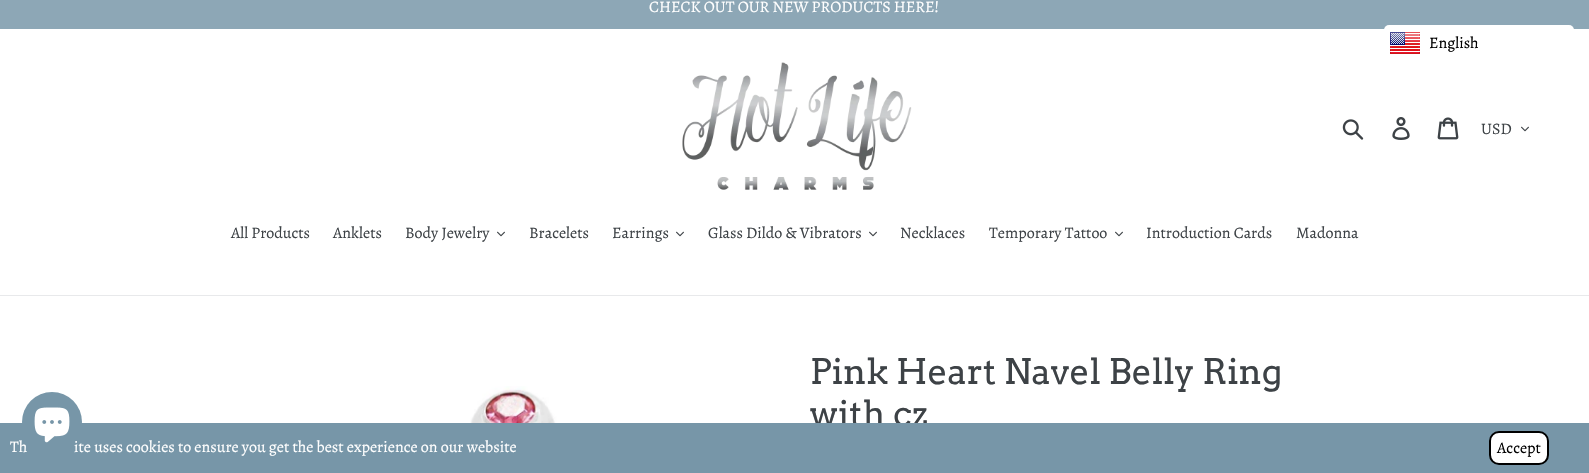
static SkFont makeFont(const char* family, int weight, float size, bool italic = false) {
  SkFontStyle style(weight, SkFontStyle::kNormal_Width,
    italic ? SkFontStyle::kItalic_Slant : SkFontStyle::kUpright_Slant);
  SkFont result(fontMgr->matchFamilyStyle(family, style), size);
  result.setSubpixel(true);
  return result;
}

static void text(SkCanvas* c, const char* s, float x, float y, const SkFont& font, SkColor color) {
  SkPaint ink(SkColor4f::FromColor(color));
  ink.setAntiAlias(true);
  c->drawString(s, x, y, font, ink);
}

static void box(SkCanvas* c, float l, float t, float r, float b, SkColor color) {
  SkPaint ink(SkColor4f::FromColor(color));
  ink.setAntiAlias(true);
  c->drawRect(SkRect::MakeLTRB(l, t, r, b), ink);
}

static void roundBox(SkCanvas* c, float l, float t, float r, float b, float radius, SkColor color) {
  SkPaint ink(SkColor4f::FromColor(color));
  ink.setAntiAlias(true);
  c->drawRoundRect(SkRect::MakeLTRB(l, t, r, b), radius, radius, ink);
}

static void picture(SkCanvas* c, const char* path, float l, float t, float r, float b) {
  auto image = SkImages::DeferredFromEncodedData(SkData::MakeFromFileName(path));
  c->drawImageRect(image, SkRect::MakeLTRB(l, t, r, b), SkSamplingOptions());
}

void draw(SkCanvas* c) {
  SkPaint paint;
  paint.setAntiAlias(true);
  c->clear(0xffffffff);
  box(c, 0, 0, 1589, 29, 0xff8da7b6);
  SkFont face1 = makeFont("Alegreya", 400, 16);
  text(c, "CHECK OUT OUR NEW PRODUCTS HERE!", 649, 12, face1, 0xffffffff);
  picture(c, "img_01.png", 682, 62, 912, 190);
  picture(c, "img_02.png", 1342, 119, 1364, 140);
  picture(c, "img_03.png", 1392, 117, 1410, 140);
  picture(c, "img_04.png", 1437, 117, 1459, 140);
  text(c, "USD", 1481, 134, face1, 0xff3d4246);
  picture(c, "img_05.png", 1521, 126, 1529, 132);
  box(c, 0, 295, 1589, 296, 0xffe8e9eb);
  text(c, "All Products", 231, 238, face1, 0xff3d4246);
  text(c, "Anklets", 333, 238, face1, 0xff3d4246);
  text(c, "Body Jewelry", 405, 238, face1, 0xff3d4246);
  picture(c, "img_05.png", 497, 231, 505, 237);
  text(c, "Bracelets", 529, 238, face1, 0xff3d4246);
  text(c, "Earrings", 612, 238, face1, 0xff3d4246);
  picture(c, "img_05.png", 676, 231, 684, 237);
  text(c, "Glass Dildo & Vibrators", 708, 238, face1, 0xff3d4246);
  picture(c, "img_05.png", 869, 231, 877, 237);
  text(c, "Necklaces", 900, 238, face1, 0xff3d4246);
  text(c, "Temporary Tattoo", 989, 238, face1, 0xff3d4246);
  picture(c, "img_05.png", 1115, 231, 1123, 237);
  text(c, "Introduction Cards", 1146, 238, face1, 0xff3d4246);
  text(c, "Madonna", 1296, 238, face1, 0xff3d4246);
  roundBox(c, 1384, 25, 1574, 61, 5, 0xffffffff);
  picture(c, "img_06.png", 1390, 32, 1420, 54);
  text(c, "English", 1429, 48, face1, 0xff000000);
  SkFont face2 = makeFont("Arvo", 400, 35);
  text(c, "with cz", 810, 426, face2, 0xff3d4246);
  box(c, 0, 423, 1589, 473, 0xff7796a8);
  text(c, "Th", 10, 452, face1, 0xffffffff);
  text(c, "ite uses cookies to ensure you get the best experience on our website", 74, 452, face1, 0xffffffff);
  paint.setColor(0xff7796a8);
  c->drawCircle(52, 422, 30, paint);
  picture(c, "img_07.png", 34, 407, 70, 443);
  picture(c, "img_08.png", 469, 386, 558, 423);
  text(c, "Pink Heart Navel Belly Ring", 810, 384, face2, 0xff3d4246);
  paint.setColor(0xffffffff);
  c->drawRoundRect(SkRect::MakeLTRB(1490, 432, 1548, 464), 9, 9, paint);
  paint.setStyle(SkPaint::kStroke_Style);
  paint.setStrokeWidth(2);
  paint.setColor(0xff000000);
  c->drawRoundRect(SkRect::MakeLTRB(1490, 432, 1548, 464), 9, 9, paint);
  text(c, "Accept", 1497, 453, face1, 0xff000000);
}
